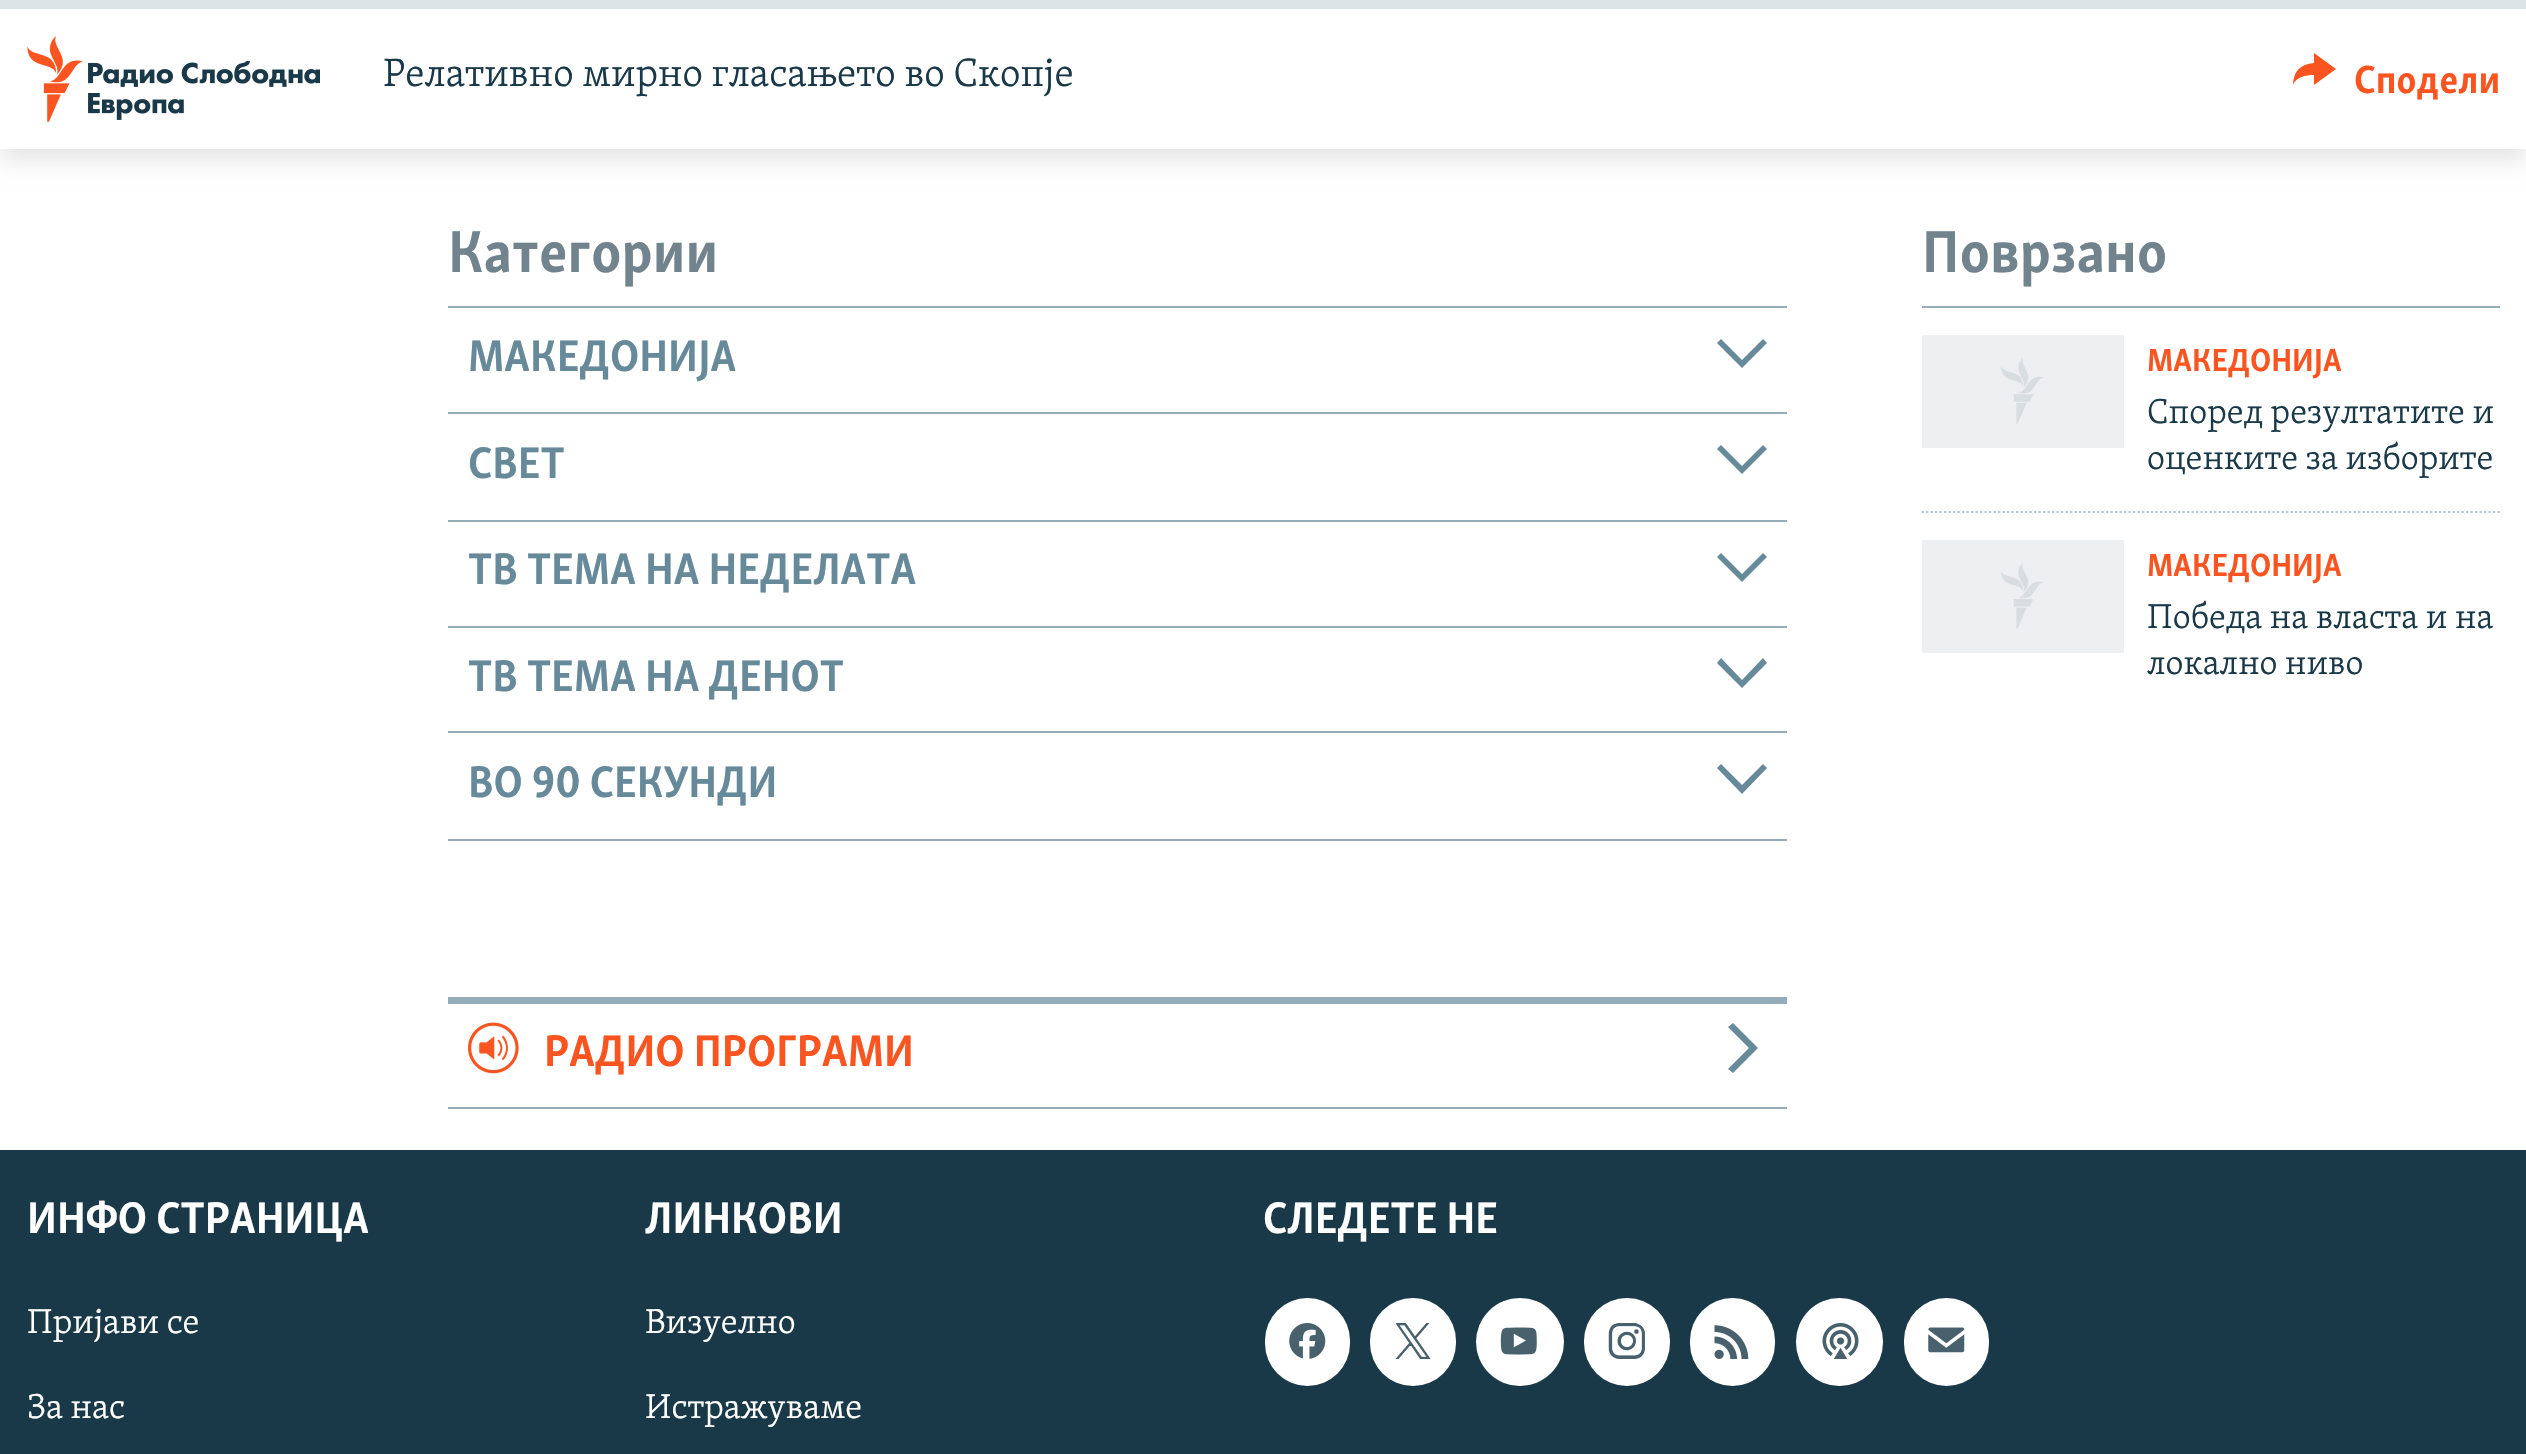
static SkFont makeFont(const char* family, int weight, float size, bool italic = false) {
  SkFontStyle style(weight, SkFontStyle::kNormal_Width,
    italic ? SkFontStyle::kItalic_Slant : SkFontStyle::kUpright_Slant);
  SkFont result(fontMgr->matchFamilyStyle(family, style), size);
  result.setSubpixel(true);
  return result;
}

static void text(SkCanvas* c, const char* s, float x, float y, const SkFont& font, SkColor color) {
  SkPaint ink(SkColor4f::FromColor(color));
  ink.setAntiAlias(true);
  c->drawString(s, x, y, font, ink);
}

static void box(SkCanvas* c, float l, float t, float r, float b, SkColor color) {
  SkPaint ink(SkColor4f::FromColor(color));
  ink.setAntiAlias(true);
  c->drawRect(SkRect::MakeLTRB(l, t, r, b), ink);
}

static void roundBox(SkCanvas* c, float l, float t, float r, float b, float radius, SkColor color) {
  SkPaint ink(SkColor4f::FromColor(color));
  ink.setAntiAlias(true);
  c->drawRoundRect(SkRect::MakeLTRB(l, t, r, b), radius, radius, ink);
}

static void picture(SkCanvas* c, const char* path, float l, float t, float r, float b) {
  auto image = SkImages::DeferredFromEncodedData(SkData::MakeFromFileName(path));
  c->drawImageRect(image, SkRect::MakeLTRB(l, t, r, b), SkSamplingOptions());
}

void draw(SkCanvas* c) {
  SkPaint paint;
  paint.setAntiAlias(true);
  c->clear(0xffffffff);
  paint.setColor(0x1a000000);
  paint.setMaskFilter(SkMaskFilter::MakeBlur(kNormal_SkBlurStyle, 11));
  c->drawRect(SkRect::MakeLTRB(0, 11, 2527, 160), paint);
  paint.setMaskFilter(nullptr);
  box(c, 0, 9, 2526, 149, 0xffffffff);
  box(c, 0, 0, 2526, 9, 0xffdce4e8);
  picture(c, "img_01.png", 27, 36, 320, 122);
  SkFont face1 = makeFont("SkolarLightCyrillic", 300, 40.5f);
  text(c, "Релативно мирно гласањето во Скопје", 383, 86, face1, 0xff1a3948);
  paint.setColor(0xfffa5420);
  c->drawPath(SkPathBuilder().moveTo(2293, 85).cubicTo(2293, 72, 2300, 64, 2314, 63).lineTo(2314, 53).lineTo(2336, 69).lineTo(2314, 85).lineTo(2314, 75).cubicTo(2306, 75, 2296, 77, 2293, 85).close().detach(), paint);
  SkFont face2 = makeFont("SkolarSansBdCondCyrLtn", 700, 40.5f);
  text(c, "Сподели", 2354, 93, face2, 0xfffa5420);
  box(c, 448, 306, 1787, 308, 0xff95adb9);
  SkFont face3 = makeFont("SkolarSansBdCondCyrLtn", 700, 60.75f);
  text(c, "Категории", 448, 272, face3, 0xff71838d);
  box(c, 448, 412, 1787, 414, 0xff95adb9);
  SkFont face4 = makeFont("SkolarSansBdCondCyrLtn", 700, 45.5f);
  text(c, "МАКЕДОНИЈА", 468, 371, face4, 0xff678a9b);
  paint.setColor(0xff678a9b);
  c->drawPath(SkPathBuilder().moveTo(1717, 343).lineTo(1742, 368).lineTo(1767, 343).lineTo(1763, 339).lineTo(1742, 360).lineTo(1721, 339).close().detach(), paint);
  box(c, 448, 520, 1787, 522, 0xff95adb9);
  text(c, "СВЕТ", 468, 478, face4, 0xff678a9b);
  c->drawPath(SkPathBuilder().moveTo(1717, 449).lineTo(1742, 474).lineTo(1767, 449).lineTo(1763, 445).lineTo(1742, 466).lineTo(1721, 445).close().detach(), paint);
  box(c, 448, 626, 1787, 628, 0xff95adb9);
  text(c, "ТВ ТЕМА НА НЕДЕЛАТА", 468, 584, face4, 0xff678a9b);
  c->drawPath(SkPathBuilder().moveTo(1717, 557).lineTo(1742, 582).lineTo(1767, 557).lineTo(1763, 553).lineTo(1742, 574).lineTo(1721, 553).close().detach(), paint);
  box(c, 448, 731, 1787, 733, 0xff95adb9);
  text(c, "ТВ ТЕМА НА ДЕНОТ", 468, 691, face4, 0xff678a9b);
  c->drawPath(SkPathBuilder().moveTo(1717, 663).lineTo(1742, 688).lineTo(1767, 663).lineTo(1763, 658).lineTo(1742, 680).lineTo(1721, 658).close().detach(), paint);
  box(c, 448, 839, 1787, 841, 0xff95adb9);
  text(c, "ВО 90 СЕКУНДИ", 468, 797, face4, 0xff678a9b);
  c->drawPath(SkPathBuilder().moveTo(1717, 768).lineTo(1742, 794).lineTo(1767, 768).lineTo(1763, 764).lineTo(1742, 785).lineTo(1721, 764).close().detach(), paint);
  box(c, 448, 997, 1787, 1004, 0xff95adb9);
  box(c, 448, 1107, 1787, 1109, 0xff95adb9);
  picture(c, "img_02.png", 468, 1022, 519, 1074);
  text(c, "РАДИО ПРОГРАМИ", 544, 1066, face4, 0xfffa5420);
  c->drawPath(SkPathBuilder().moveTo(1733, 1073).lineTo(1758, 1048).lineTo(1733, 1023).lineTo(1728, 1027).lineTo(1749, 1048).lineTo(1728, 1069).close().detach(), paint);
  box(c, 1922, 306, 2500, 308, 0xff95adb9);
  text(c, "Поврзано", 1922, 272, face3, 0xff71838d);
  box(c, 1922, 335, 2124, 448, 0xffedeff0);
  picture(c, "img_03.png", 2001, 358, 2044, 424);
  SkFont face5 = makeFont("SkolarSansBdCondCyrLtn", 700, 33);
  text(c, "МАКЕДОНИЈА", 2147, 371, face5, 0xfffa5420);
  SkFont face6 = makeFont("SkolarLightCyrillic", 300, 35.5f);
  text(c, "Според резултатите и", 2147, 423, face6, 0xff1a3948);
  text(c, "оценките за изборите", 2147, 469, face6, 0xff1a3948);
  paint.setStyle(SkPaint::kStroke_Style);
  paint.setStrokeWidth(2.2f);
  paint.setColor(0xffb4c5cd);
  paint.setPathEffect(SkDashPathEffect::Make({{2.25f, 2.25f}}, 0));
  c->drawPath(SkPathBuilder().moveTo(1921.5f, 512).lineTo(2500, 512).detach(), paint);
  paint.setPathEffect(nullptr);
  box(c, 1922, 540, 2124, 653, 0xffedeff0);
  picture(c, "img_04.png", 2001, 563, 2044, 629);
  text(c, "МАКЕДОНИЈА", 2147, 576, face5, 0xfffa5420);
  text(c, "Победа на власта и на", 2147, 628, face6, 0xff1a3948);
  text(c, "локално ниво", 2147, 674, face6, 0xff1a3948);
  box(c, 0, 1150, 2526, 1454, 0xff1a3948);
  text(c, "ИНФО СТРАНИЦА", 27, 1233, face4, 0xffffffff);
  text(c, "Пријави се", 27, 1333, face6, 0xffffffff);
  text(c, "За нас", 27, 1418, face6, 0xffffffff);
  text(c, "ЛИНКОВИ", 645, 1233, face4, 0xffffffff);
  text(c, "Визуелно", 645, 1333, face6, 0xffffffff);
  text(c, "Истражуваме", 645, 1418, face6, 0xffffffff);
  text(c, "СЛЕДЕТЕ НЕ", 1263, 1233, face4, 0xffffffff);
  roundBox(c, 1265, 1298, 1350, 1386, 42.5f, 0xffffffff);
  picture(c, "img_05.png", 1289, 1323, 1326, 1359);
  roundBox(c, 1370, 1298, 1456, 1386, 43, 0xffffffff);
  picture(c, "img_06.png", 1395, 1323, 1431, 1359);
  paint.setStyle(SkPaint::kFill_Style);
  paint.setColor(0xffffffff);
  c->drawCircle(1520, 1342, 44, paint);
  picture(c, "img_07.png", 1500, 1327, 1537, 1355);
  roundBox(c, 1584, 1298, 1670, 1386, 43, 0xffffffff);
  picture(c, "img_08.png", 1608, 1323, 1645, 1359);
  roundBox(c, 1690, 1298, 1775, 1386, 42.5f, 0xffffffff);
  picture(c, "img_09.png", 1714, 1325, 1749, 1359);
  roundBox(c, 1796, 1298, 1883, 1386, 43.5f, 0xffffffff);
  picture(c, "img_10.png", 1822, 1323, 1859, 1359);
  roundBox(c, 1904, 1298, 1989, 1386, 42.5f, 0xffffffff);
  picture(c, "img_11.png", 1928, 1327, 1965, 1353);
}
